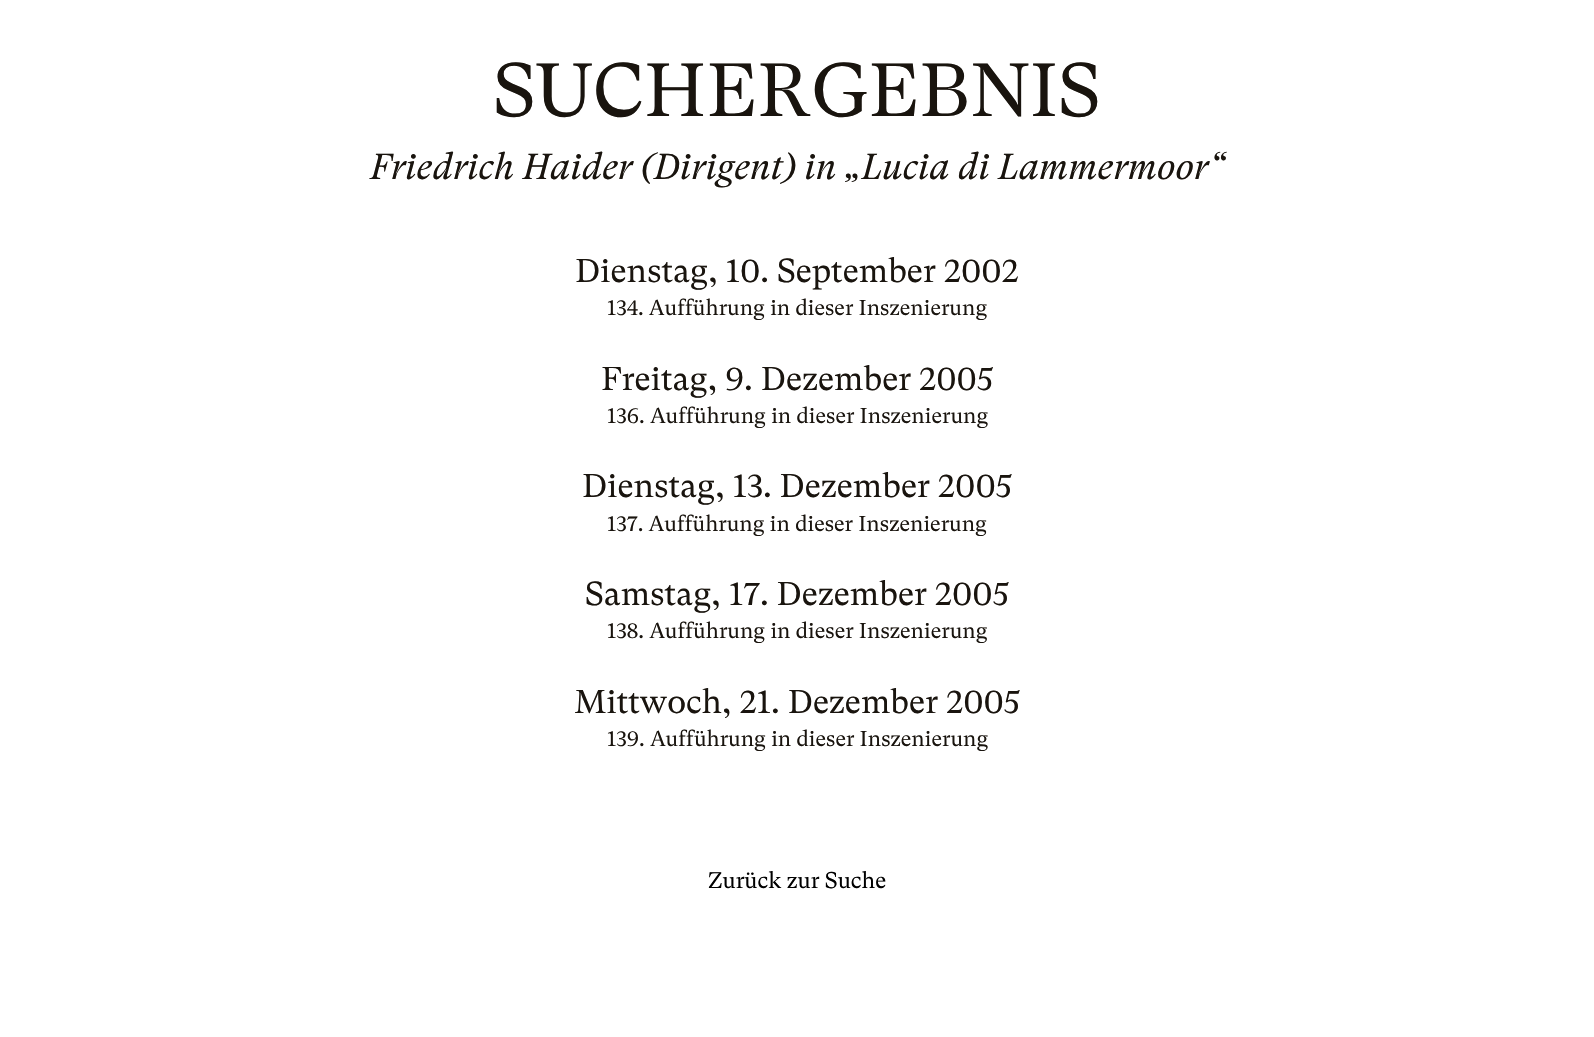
static SkFont makeFont(const char* family, int weight, float size, bool italic = false) {
  SkFontStyle style(weight, SkFontStyle::kNormal_Width,
    italic ? SkFontStyle::kItalic_Slant : SkFontStyle::kUpright_Slant);
  SkFont result(fontMgr->matchFamilyStyle(family, style), size);
  result.setSubpixel(true);
  return result;
}

static void text(SkCanvas* c, const char* s, float x, float y, const SkFont& font, SkColor color) {
  SkPaint ink(SkColor4f::FromColor(color));
  ink.setAntiAlias(true);
  c->drawString(s, x, y, font, ink);
}

void draw(SkCanvas* c) {
  SkPaint paint;
  paint.setAntiAlias(true);
  c->clear(0xffffffff);
  SkFont face1 = makeFont("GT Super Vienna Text", 400, 75);
  text(c, "SUCHERGEBNIS", 493, 116, face1, 0xff19140e);
  SkFont face2 = makeFont("GT Super Vienna Text", 400, 36, true);
  text(c, "Friedrich Haider (Dirigent) in „Lucia di Lammermoor“", 370, 179, face2, 0xff19140e);
  SkFont face3 = makeFont("GT Super Vienna Text", 400, 33);
  text(c, "Dienstag, 10. September 2002", 575, 282, face3, 0xff19140e);
  SkFont face4 = makeFont("GT Super Vienna Text", 400, 21.6f);
  text(c, "134. Aufführung in dieser Inszenierung", 607, 315, face4, 0xff19140e);
  text(c, "Freitag, 9. Dezember 2005", 601, 390, face3, 0xff19140e);
  text(c, "136. Aufführung in dieser Inszenierung", 607, 423, face4, 0xff19140e);
  text(c, "Dienstag, 13. Dezember 2005", 582, 497, face3, 0xff19140e);
  text(c, "137. Aufführung in dieser Inszenierung", 607, 531, face4, 0xff19140e);
  text(c, "Samstag, 17. Dezember 2005", 585, 605, face3, 0xff19140e);
  text(c, "138. Aufführung in dieser Inszenierung", 607, 638, face4, 0xff19140e);
  text(c, "Mittwoch, 21. Dezember 2005", 574, 713, face3, 0xff19140e);
  text(c, "139. Aufführung in dieser Inszenierung", 607, 746, face4, 0xff19140e);
  SkFont face5 = makeFont("GT Super Vienna Text", 400, 22.5f);
  text(c, "Zurück zur Suche", 708, 888, face5, 0xff000000);
}
